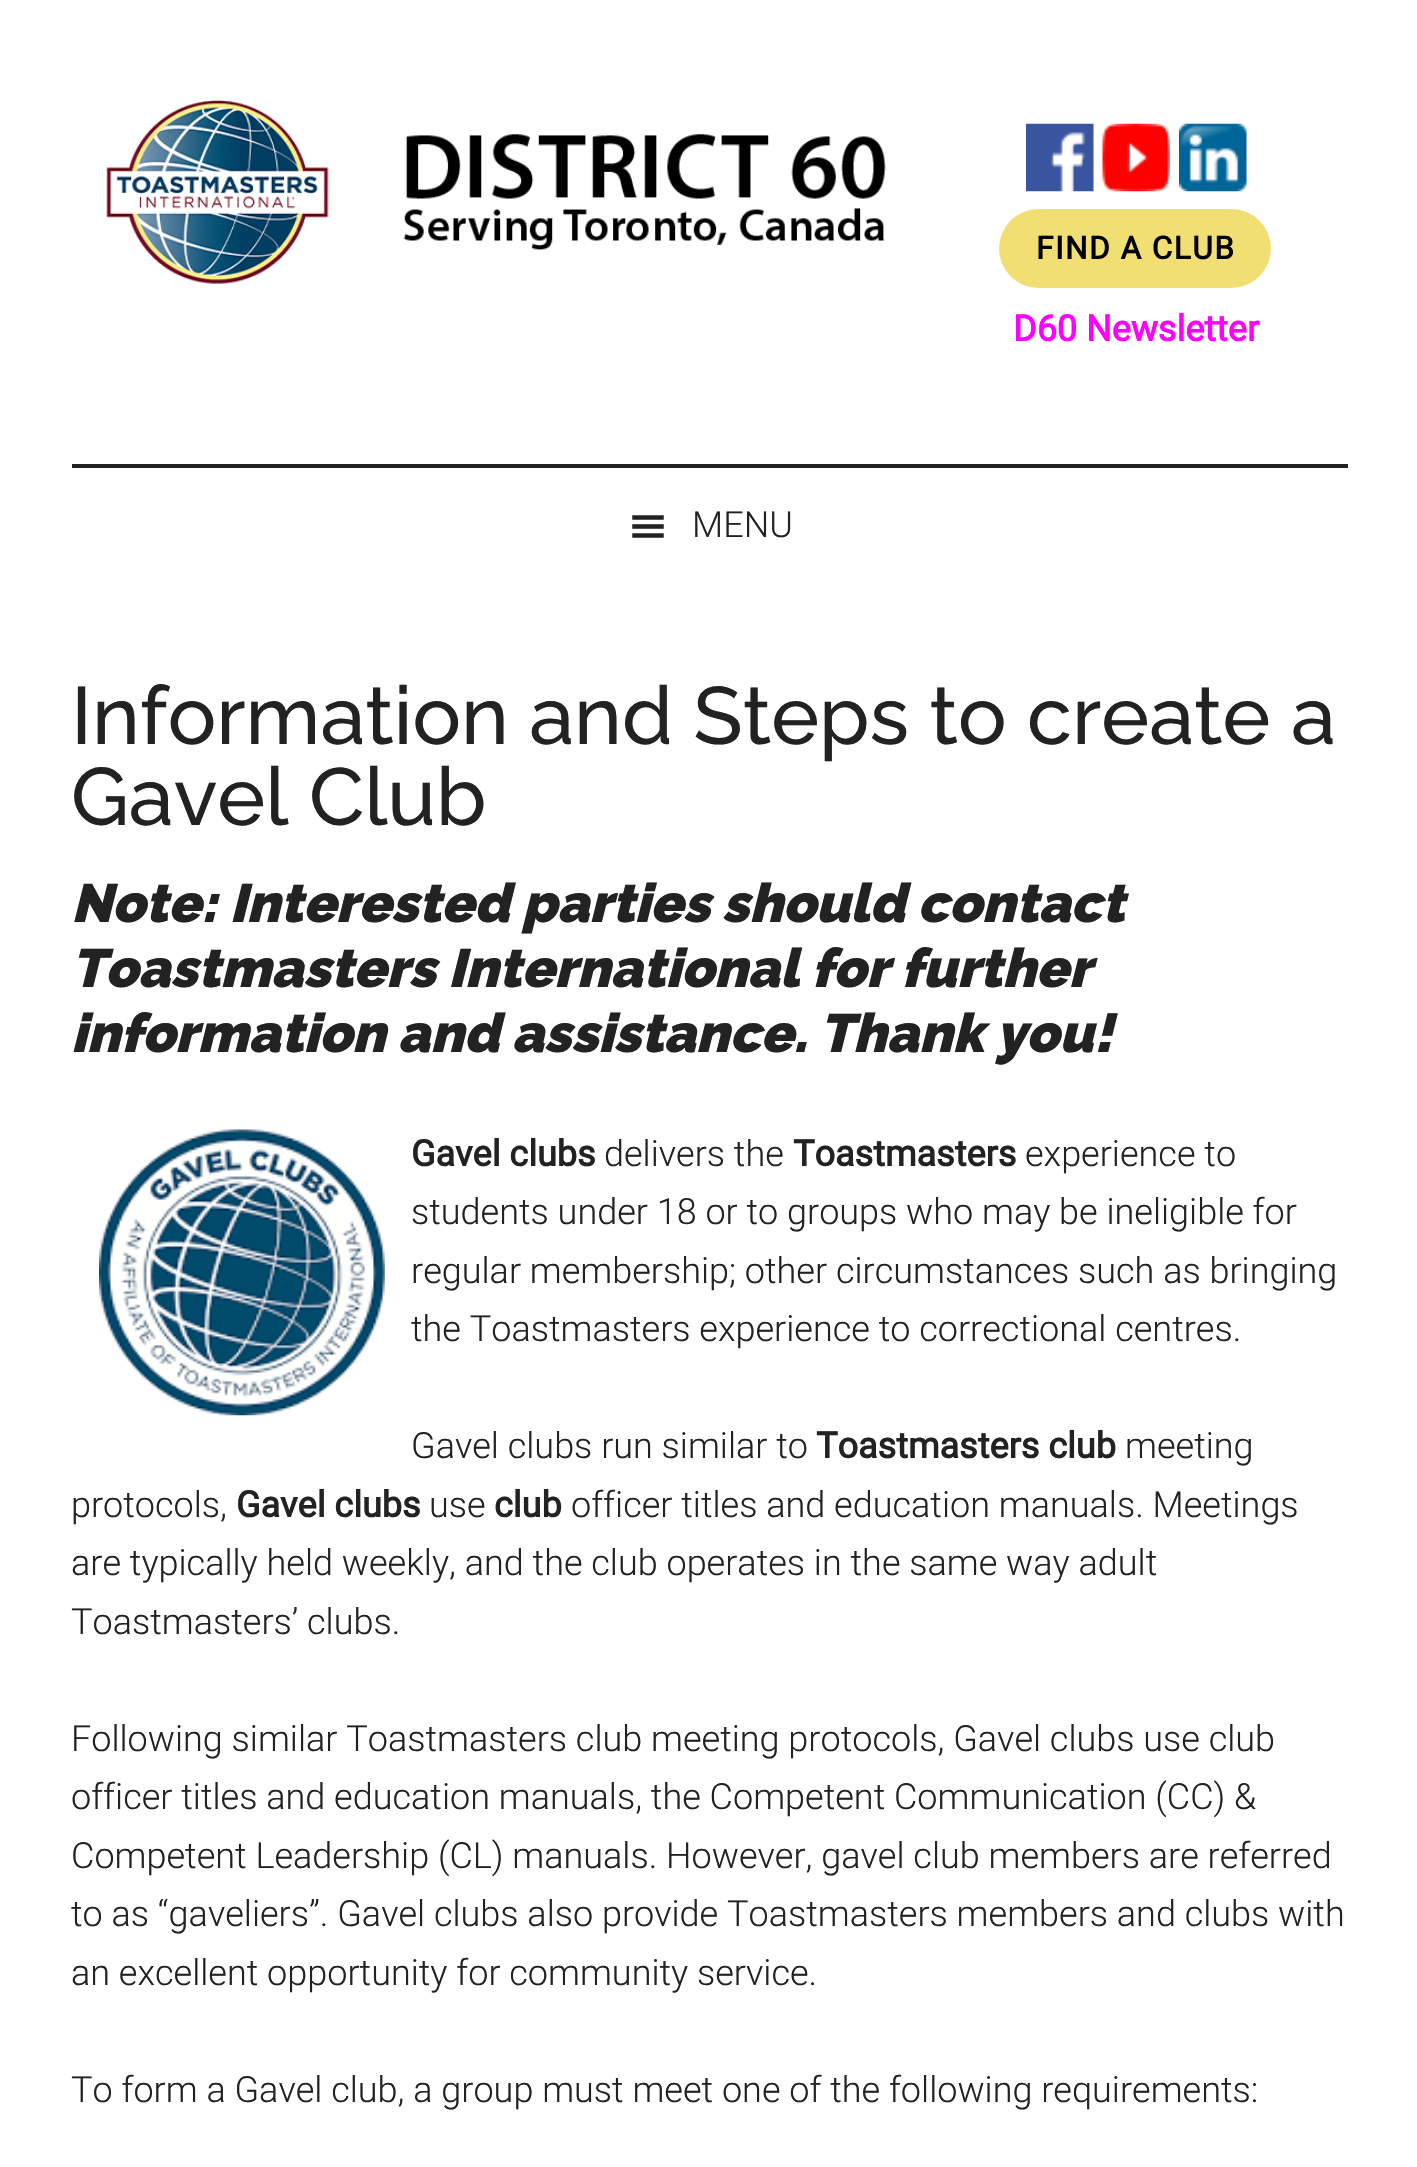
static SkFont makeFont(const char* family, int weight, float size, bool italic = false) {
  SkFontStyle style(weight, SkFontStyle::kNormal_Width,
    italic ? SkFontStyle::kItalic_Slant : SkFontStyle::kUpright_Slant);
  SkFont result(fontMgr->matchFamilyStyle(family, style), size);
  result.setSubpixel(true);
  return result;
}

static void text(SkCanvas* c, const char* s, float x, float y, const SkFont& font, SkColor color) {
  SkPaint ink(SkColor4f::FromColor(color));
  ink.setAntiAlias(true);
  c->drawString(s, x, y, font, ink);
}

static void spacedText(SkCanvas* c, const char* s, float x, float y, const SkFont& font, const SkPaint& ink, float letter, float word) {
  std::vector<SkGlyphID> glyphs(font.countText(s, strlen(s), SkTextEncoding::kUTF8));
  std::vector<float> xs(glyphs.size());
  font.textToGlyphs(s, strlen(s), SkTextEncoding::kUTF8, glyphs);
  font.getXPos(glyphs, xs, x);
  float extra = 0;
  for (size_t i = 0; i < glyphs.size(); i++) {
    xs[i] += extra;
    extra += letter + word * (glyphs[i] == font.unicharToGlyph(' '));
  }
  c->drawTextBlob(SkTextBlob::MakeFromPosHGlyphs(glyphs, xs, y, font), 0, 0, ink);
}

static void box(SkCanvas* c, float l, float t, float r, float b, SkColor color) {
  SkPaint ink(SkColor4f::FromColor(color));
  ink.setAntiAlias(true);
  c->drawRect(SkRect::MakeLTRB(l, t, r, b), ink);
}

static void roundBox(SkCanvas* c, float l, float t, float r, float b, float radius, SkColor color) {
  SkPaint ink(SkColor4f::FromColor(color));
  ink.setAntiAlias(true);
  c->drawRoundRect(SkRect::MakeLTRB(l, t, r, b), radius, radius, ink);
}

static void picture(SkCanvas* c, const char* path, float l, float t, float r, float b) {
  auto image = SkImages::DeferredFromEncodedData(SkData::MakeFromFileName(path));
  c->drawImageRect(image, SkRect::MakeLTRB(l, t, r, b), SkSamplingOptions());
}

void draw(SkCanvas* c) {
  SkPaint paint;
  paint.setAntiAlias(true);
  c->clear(0xffffffff);
  box(c, 72, 464, 1348, 468, 0xff222222);
  picture(c, "img_01.png", 106, 99, 886, 284);
  picture(c, "img_02.png", 1026, 123, 1094, 192);
  picture(c, "img_03.png", 1102, 123, 1170, 192);
  picture(c, "img_04.png", 1179, 123, 1247, 192);
  roundBox(c, 999, 209, 1271, 288, 39.5f, 0xfff2df74);
  SkFont face1 = makeFont("Roboto", 700, 31.5f);
  paint.setColor(0xff000000);
  spacedText(c, "FIND A CLUB", 1036, 259, face1, paint, 1.5f, 0);
  SkFont face2 = makeFont("Roboto", 700, 36);
  text(c, "D60 Newsletter", 1013, 341, face2, 0xffff00ff);
  picture(c, "img_05.png", 632, 515, 664, 538);
  SkFont face3 = makeFont("Roboto", 300, 36);
  text(c, "MENU", 692, 537, face3, 0xff222222);
  SkFont face4 = makeFont("Raleway", 500, 81);
  text(c, "Information and Steps to create a", 71, 744, face4, 0xff222222);
  text(c, "Gavel Club", 71, 825, face4, 0xff222222);
  SkFont face5 = makeFont("Raleway", 900, 54, true);
  text(c, "Note: Interested parties should contact", 71, 922, face5, 0xff222222);
  text(c, "Toastmasters International for further", 71, 987, face5, 0xff222222);
  text(c, "information and assistance. Thank you!", 71, 1052, face5, 0xff222222);
  picture(c, "img_06.png", 99, 1129, 385, 1416);
  text(c, "Gavel clubs", 411, 1166, face2, 0xff222222);
  text(c, "delivers the", 604, 1166, face3, 0xff222222);
  text(c, "Toastmasters", 793, 1166, face2, 0xff222222);
  text(c, "experience to", 1025, 1166, face3, 0xff222222);
  text(c, "students under 18 or to groups who may be ineligible for", 411, 1224, face3, 0xff222222);
  text(c, "regular membership; other circumstances such as bringing", 411, 1283, face3, 0xff222222);
  text(c, "the Toastmasters experience to correctional centres.", 411, 1341, face3, 0xff222222);
  text(c, "Gavel clubs run similar to", 411, 1458, face3, 0xff222222);
  text(c, "Toastmasters club", 816, 1458, face2, 0xff222222);
  text(c, "meeting", 1125, 1458, face3, 0xff222222);
  text(c, "protocols,", 71, 1517, face3, 0xff222222);
  text(c, "Gavel clubs", 236, 1517, face2, 0xff222222);
  text(c, "use", 429, 1517, face3, 0xff222222);
  text(c, "club", 494, 1517, face2, 0xff222222);
  text(c, "officer titles and education manuals. Meetings", 571, 1517, face3, 0xff222222);
  text(c, "are typically held weekly, and the club operates in the same way adult", 71, 1575, face3, 0xff222222);
  text(c, "Toastmasters’ clubs.", 71, 1634, face3, 0xff222222);
  text(c, "Following similar Toastmasters club meeting protocols, Gavel clubs use club", 71, 1751, face3, 0xff222222);
  text(c, "officer titles and education manuals, the Competent Communication (CC) &", 71, 1809, face3, 0xff222222);
  text(c, "Competent Leadership (CL) manuals. However, gavel club members are referred", 71, 1868, face3, 0xff222222);
  text(c, "to as “gaveliers”. Gavel clubs also provide Toastmasters members and clubs with", 71, 1926, face3, 0xff222222);
  text(c, "an excellent opportunity for community service.", 71, 1985, face3, 0xff222222);
  text(c, "To form a Gavel club, a group must meet one of the following requirements:", 71, 2102, face3, 0xff222222);
}
